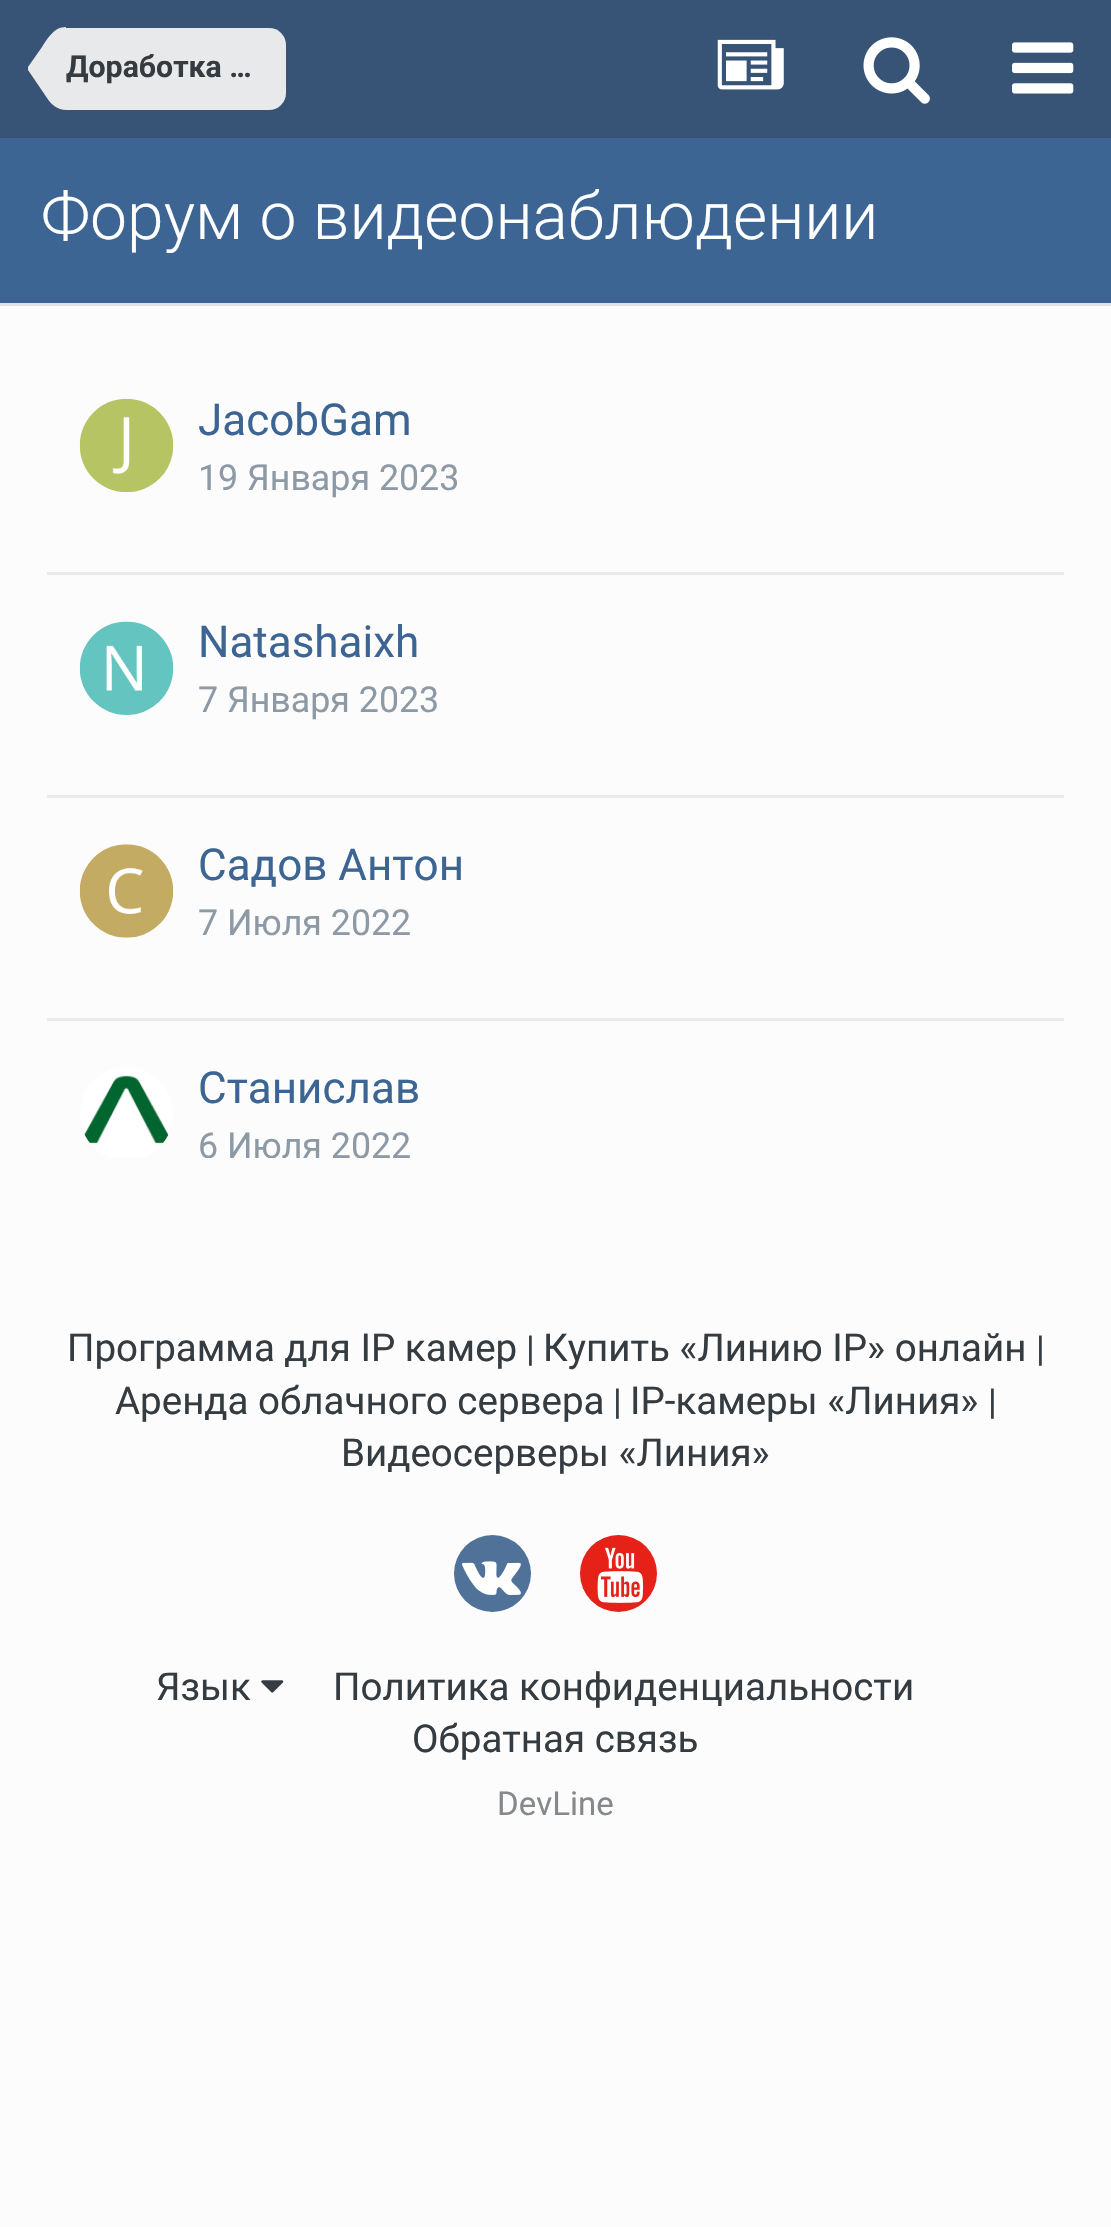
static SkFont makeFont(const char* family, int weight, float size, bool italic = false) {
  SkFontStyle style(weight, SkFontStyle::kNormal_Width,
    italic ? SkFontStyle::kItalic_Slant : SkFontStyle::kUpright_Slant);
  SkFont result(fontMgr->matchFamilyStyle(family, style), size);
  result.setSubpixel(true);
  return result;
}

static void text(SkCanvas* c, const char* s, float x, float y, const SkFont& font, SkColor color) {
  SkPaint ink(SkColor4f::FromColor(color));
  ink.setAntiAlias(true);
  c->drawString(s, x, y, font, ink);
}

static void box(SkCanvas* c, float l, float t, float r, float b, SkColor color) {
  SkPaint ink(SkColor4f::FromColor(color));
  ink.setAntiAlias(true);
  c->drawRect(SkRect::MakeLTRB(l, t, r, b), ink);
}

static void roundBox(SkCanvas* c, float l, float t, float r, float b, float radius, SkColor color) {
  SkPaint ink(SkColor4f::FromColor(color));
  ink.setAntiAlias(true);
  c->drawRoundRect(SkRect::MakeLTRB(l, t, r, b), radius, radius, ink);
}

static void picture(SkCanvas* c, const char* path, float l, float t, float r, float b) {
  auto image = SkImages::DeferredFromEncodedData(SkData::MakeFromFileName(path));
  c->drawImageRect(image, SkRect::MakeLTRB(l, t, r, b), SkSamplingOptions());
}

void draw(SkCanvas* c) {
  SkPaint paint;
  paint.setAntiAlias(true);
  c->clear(0xfffcfcfc);
  box(c, 0, 303, 1111, 306, 0xffe3e3e3);
  box(c, 0, 0, 1111, 138, 0xff375476);
  paint.setColor(0xffe8e9eb);
  c->drawPath(SkPathBuilder().moveTo(66, 28).lineTo(269, 28).cubicTo(278.5f, 28, 286, 35.5f, 286, 45).lineTo(286, 93).cubicTo(286, 102.5f, 278.5f, 110, 269, 110).lineTo(66, 110).close().detach(), paint);
  c->drawPath(SkPathBuilder().moveTo(28, 69).lineTo(66, 69).lineTo(66, 110).cubicTo(59, 110, 52, 106, 47, 98).lineTo(28, 70).close().detach(), paint);
  c->drawPath(SkPathBuilder().moveTo(66, 27).lineTo(66, 69).lineTo(28, 69).lineTo(28, 67).lineTo(42, 47).cubicTo(48, 38, 54, 27, 66, 27).close().detach(), paint);
  SkFont face1 = makeFont("Roboto", 700, 30.25f);
  text(c, "Доработка …", 66, 77, face1, 0xff353c41);
  picture(c, "img_01.png", 717, 39, 784, 90);
  picture(c, "img_02.png", 863, 37, 930, 104);
  picture(c, "img_03.png", 1012, 42, 1074, 94);
  box(c, 0, 138, 1111, 303, 0xff3d6594);
  SkFont face2 = makeFont("Roboto", 300, 66);
  text(c, "Форум о видеонаблюдении", 41, 239, face2, 0xffffffff);
  box(c, 47, 572, 1064, 575, 0xffebebeb);
  picture(c, "img_04.png", 79, 398, 174, 493);
  SkFont face3 = makeFont("Roboto", 400, 44);
  text(c, "JacobGam", 198, 435, face3, 0xff3d6594);
  SkFont face4 = makeFont("Roboto", 400, 35.75f);
  text(c, "19 Января 2023", 198, 490, face4, 0xff8d9aa6);
  box(c, 47, 795, 1064, 798, 0xffebebeb);
  picture(c, "img_05.png", 79, 621, 174, 715);
  text(c, "Natashaixh", 198, 657, face3, 0xff3d6594);
  text(c, "7 Января 2023", 198, 712, face4, 0xff8d9aa6);
  box(c, 47, 1018, 1064, 1021, 0xffebebeb);
  roundBox(c, 80, 844, 173, 938, 46.5f, 0xffffffff);
  picture(c, "img_06.png", 79, 844, 174, 938);
  text(c, "Садов Антон", 198, 880, face3, 0xff3d6594);
  text(c, "7 Июля 2022", 198, 935, face4, 0xff8d9aa6);
  c->save();
  c->clipRect(SkRect::MakeLTRB(28, 333, 1084, 1158));
  roundBox(c, 80, 1067, 173, 1161, 46.5f, 0xffffffff);
  c->restore();
  picture(c, "img_07.png", 84, 1075, 169, 1144);
  text(c, "Станислав", 198, 1103, face3, 0xff3d6594);
  c->save();
  c->clipRect(SkRect::MakeLTRB(28, 333, 1084, 1158));
  text(c, "6 Июля 2022", 198, 1158, face4, 0xff8d9aa6);
  c->restore();
  SkFont face5 = makeFont("Roboto", 400, 38.5f);
  text(c, "Программа для IP камер", 67, 1361, face5, 0xff353c41);
  text(c, "|", 526, 1361, face4, 0xff353c41);
  text(c, "Купить «Линию IP» онлайн", 543, 1361, face5, 0xff353c41);
  text(c, "|", 1036, 1361, face4, 0xff353c41);
  text(c, "Аренда облачного сервера", 115, 1414, face5, 0xff353c41);
  text(c, "|", 613, 1414, face4, 0xff353c41);
  text(c, "IP-камеры «Линия»", 630, 1414, face5, 0xff353c41);
  text(c, "|", 988, 1414, face4, 0xff353c41);
  text(c, "Видеосерверы «Линия»", 341, 1466, face5, 0xff353c41);
  paint.setColor(0xff507299);
  c->drawCircle(492.5f, 1573.5f, 38.5f, paint);
  picture(c, "img_08.png", 462, 1561, 521, 1595);
  paint.setColor(0xffe62117);
  c->drawCircle(618.5f, 1573.5f, 38.5f, paint);
  picture(c, "img_09.png", 597, 1547, 644, 1603);
  text(c, "Язык", 156, 1700, face5, 0xff353c41);
  picture(c, "img_10.png", 261, 1680, 284, 1693);
  text(c, "Политика конфиденциальности", 333, 1700, face5, 0xff353c41);
  text(c, "Обратная связь", 412, 1752, face5, 0xff353c41);
  SkFont face6 = makeFont("Roboto", 400, 33);
  text(c, "DevLine", 497, 1815, face6, 0xff85898c);
}
